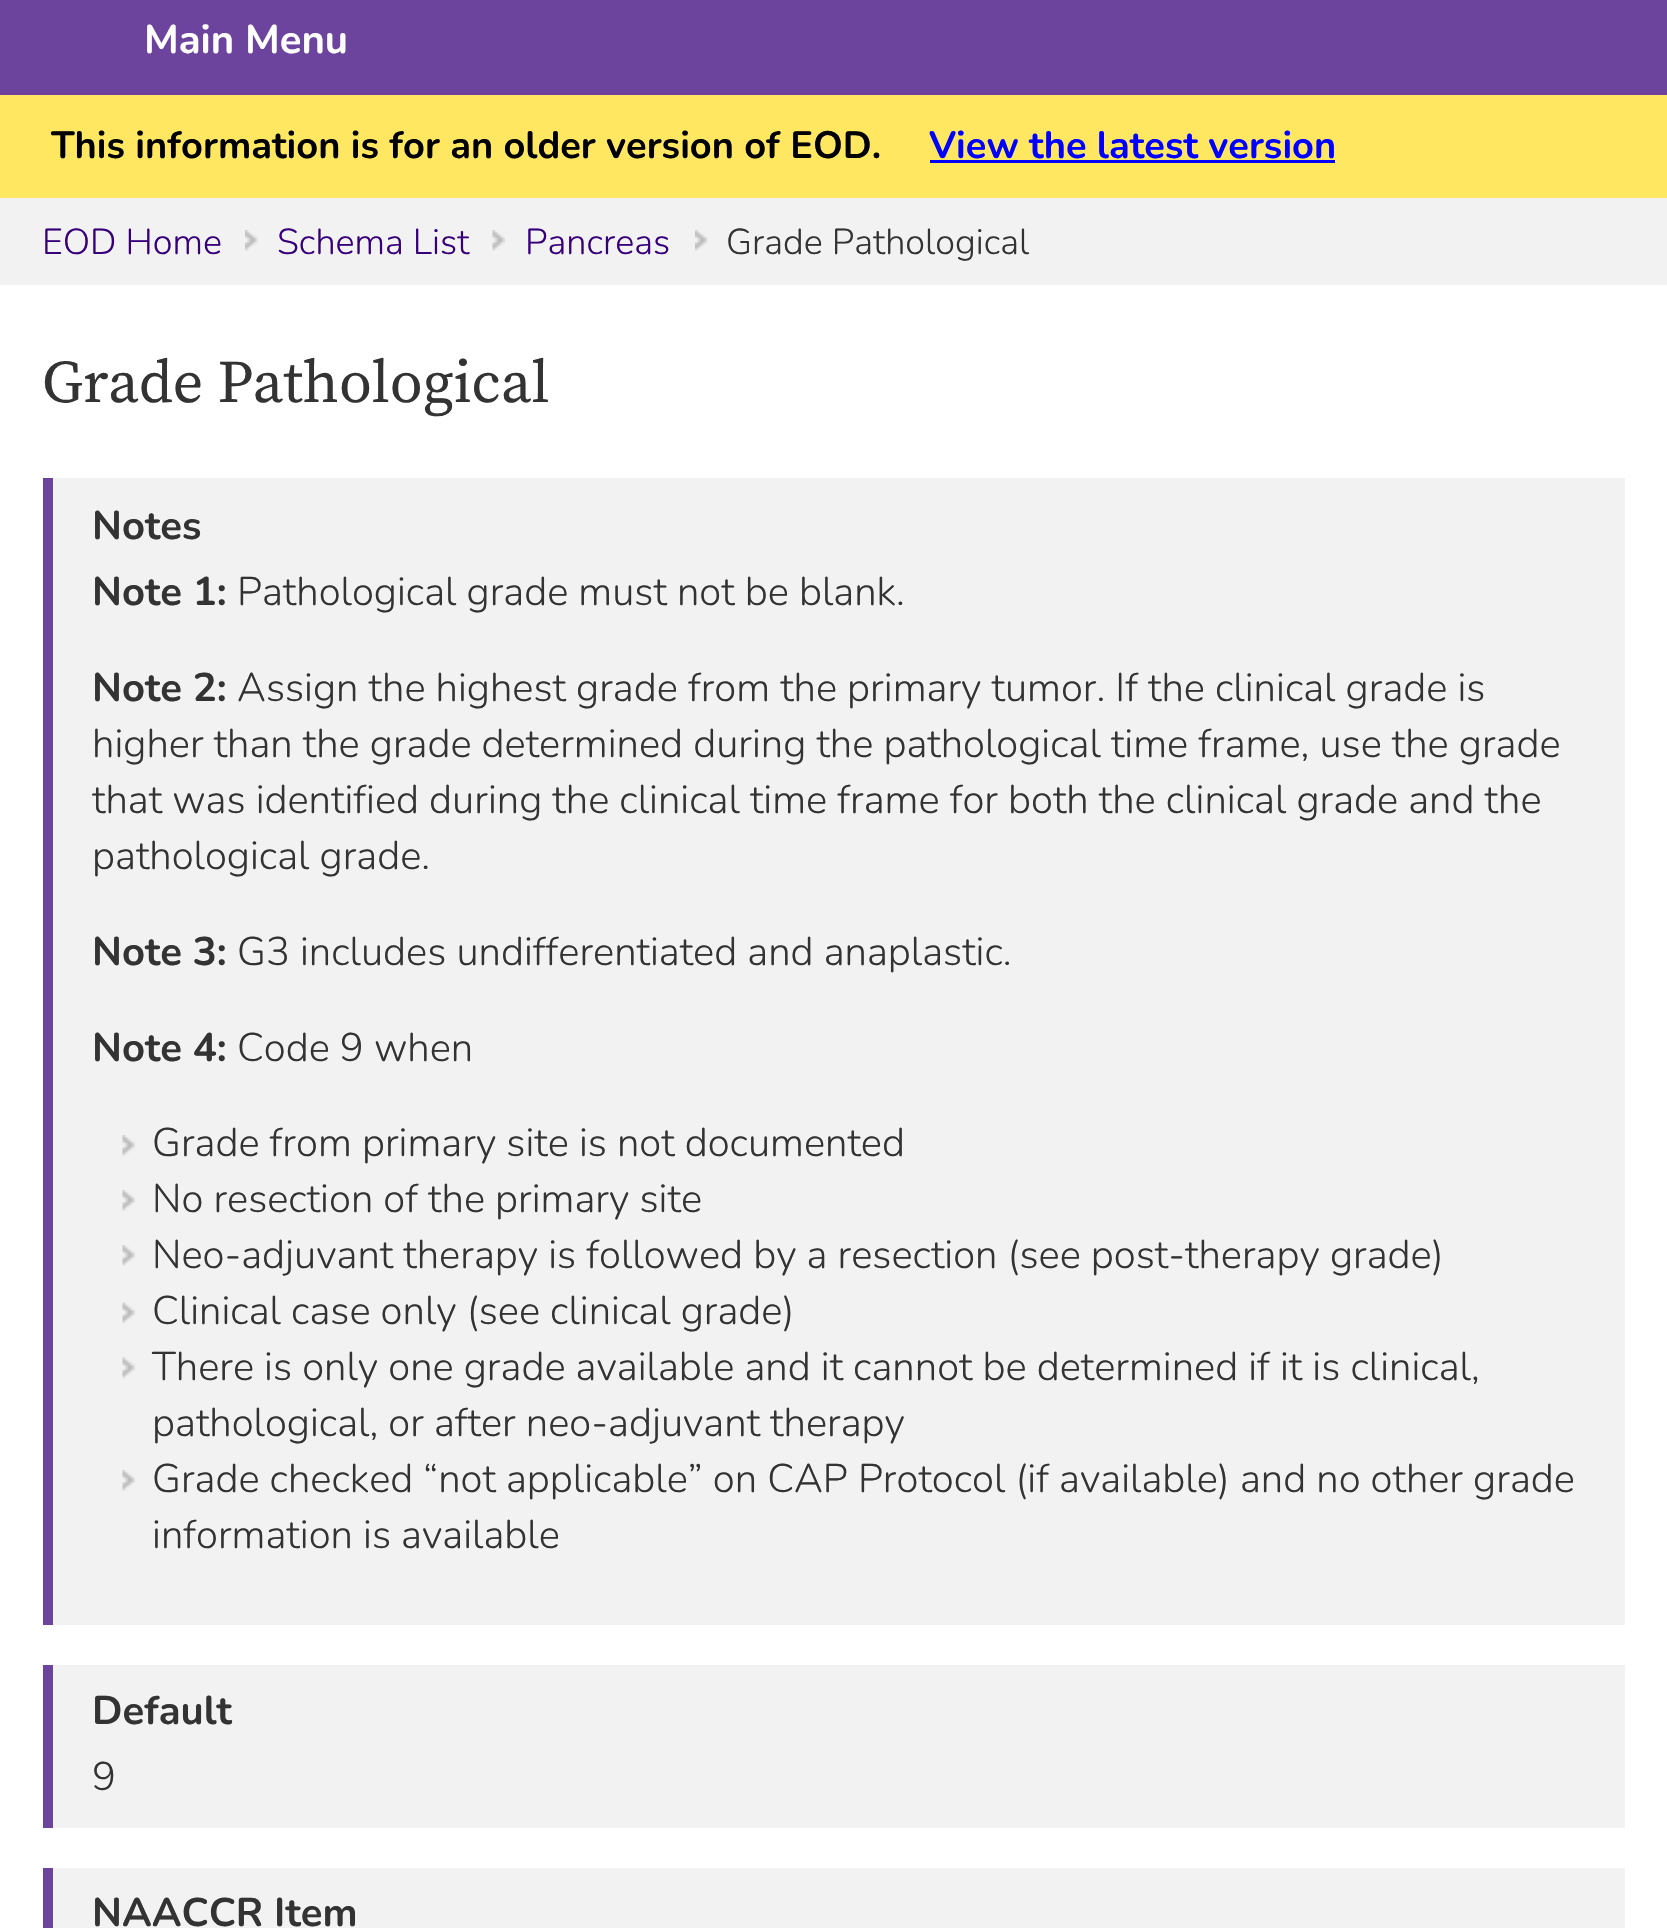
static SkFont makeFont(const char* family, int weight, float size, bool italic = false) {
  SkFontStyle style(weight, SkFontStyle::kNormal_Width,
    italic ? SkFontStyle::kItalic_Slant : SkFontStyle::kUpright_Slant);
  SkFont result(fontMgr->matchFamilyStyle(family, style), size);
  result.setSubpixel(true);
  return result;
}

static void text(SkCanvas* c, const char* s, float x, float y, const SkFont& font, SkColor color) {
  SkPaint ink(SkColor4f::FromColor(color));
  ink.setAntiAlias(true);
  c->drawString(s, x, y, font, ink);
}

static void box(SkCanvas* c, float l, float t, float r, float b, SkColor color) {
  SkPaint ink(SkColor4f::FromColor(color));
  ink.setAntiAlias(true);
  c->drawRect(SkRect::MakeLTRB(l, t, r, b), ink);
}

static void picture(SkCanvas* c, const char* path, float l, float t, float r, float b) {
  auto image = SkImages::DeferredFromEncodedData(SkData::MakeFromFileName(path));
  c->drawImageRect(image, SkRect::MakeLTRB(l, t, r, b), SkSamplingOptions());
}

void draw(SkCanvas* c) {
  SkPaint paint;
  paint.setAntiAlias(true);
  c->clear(0xff6c439d);
  SkFont face1 = makeFont("Nunito", 200, 40);
  text(c, "Main Menu", 144, 53, face1, 0xffffffff);
  box(c, 0, 95, 1667, 198, 0xffffe761);
  SkFont face2 = makeFont("Nunito", 200, 38);
  text(c, "This information is for an older version of EOD.", 51, 158, face2, 0xff000000);
  text(c, "View the latest version", 929, 158, face2, 0xff0000ff);
  box(c, 930, 160, 1335, 163, 0xff0000ff);
  box(c, 0, 198, 1667, 285, 0xfff2f2f2);
  picture(c, "img_01.png", 245, 230, 258, 251);
  SkFont face3 = makeFont("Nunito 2", 200, 36);
  text(c, "EOD Home", 42, 254, face3, 0xff37007a);
  picture(c, "img_02.png", 492, 230, 505, 251);
  text(c, "Schema List", 277, 254, face3, 0xff37007a);
  picture(c, "img_03.png", 695, 230, 708, 251);
  text(c, "Pancreas", 525, 254, face3, 0xff37007a);
  text(c, "Grade Pathological", 726, 254, face3, 0xff333333);
  box(c, 0, 285, 1667, 1928, 0xffffffff);
  SkFont face4 = makeFont("Source Serif Pro", 400, 60);
  text(c, "Grade Pathological", 42, 402, face4, 0xff333333);
  box(c, 53, 478, 1625, 1625, 0xfff2f2f2);
  box(c, 43, 478, 53, 1625, 0xff6c439d);
  text(c, "Notes", 92, 539, face1, 0xff333333);
  text(c, "Note 1:", 92, 605, face1, 0xff333333);
  SkFont face5 = makeFont("Nunito 2", 200, 40);
  text(c, "Pathological grade must not be blank.", 237, 605, face5, 0xff333333);
  text(c, "Note 2:", 92, 701, face1, 0xff333333);
  text(c, "Assign the highest grade from the primary tumor. If the clinical grade is", 237, 701, face5, 0xff333333);
  text(c, "higher than the grade determined during the pathological time frame, use the grade", 92, 757, face5, 0xff333333);
  text(c, "that was identified during the clinical time frame for both the clinical grade and the", 92, 813, face5, 0xff333333);
  text(c, "pathological grade.", 92, 869, face5, 0xff333333);
  text(c, "Note 3:", 92, 965, face1, 0xff333333);
  text(c, "G3 includes undifferentiated and anaplastic.", 237, 965, face5, 0xff333333);
  text(c, "Note 4:", 92, 1061, face1, 0xff333333);
  text(c, "Code 9 when", 237, 1061, face5, 0xff333333);
  picture(c, "img_02.png", 122, 1135, 135, 1156);
  text(c, "Grade from primary site is not documented", 152, 1156, face5, 0xff333333);
  picture(c, "img_02.png", 122, 1190, 135, 1211);
  text(c, "No resection of the primary site", 152, 1212, face5, 0xff333333);
  picture(c, "img_02.png", 122, 1245, 135, 1266);
  text(c, "Neo-adjuvant therapy is followed by a resection (see post-therapy grade)", 152, 1268, face5, 0xff333333);
  picture(c, "img_04.png", 122, 1302, 135, 1324);
  text(c, "Clinical case only (see clinical grade)", 152, 1324, face5, 0xff333333);
  picture(c, "img_04.png", 122, 1357, 135, 1379);
  text(c, "There is only one grade available and it cannot be determined if it is clinical,", 152, 1380, face5, 0xff333333);
  text(c, "pathological, or after neo-adjuvant therapy", 152, 1436, face5, 0xff333333);
  picture(c, "img_02.png", 122, 1470, 135, 1491);
  text(c, "Grade checked “not applicable” on CAP Protocol (if available) and no other grade", 152, 1492, face5, 0xff333333);
  text(c, "information is available", 152, 1548, face5, 0xff333333);
  box(c, 53, 1665, 1625, 1828, 0xfff2f2f2);
  box(c, 43, 1665, 53, 1828, 0xff6c439d);
  text(c, "Default", 92, 1724, face1, 0xff333333);
  text(c, "9", 92, 1790, face5, 0xff333333);
  box(c, 53, 1868, 1625, 1928, 0xfff2f2f2);
  box(c, 43, 1868, 53, 1928, 0xff6c439d);
  text(c, "NAACCR Item", 92, 1926, face1, 0xff333333);
}
